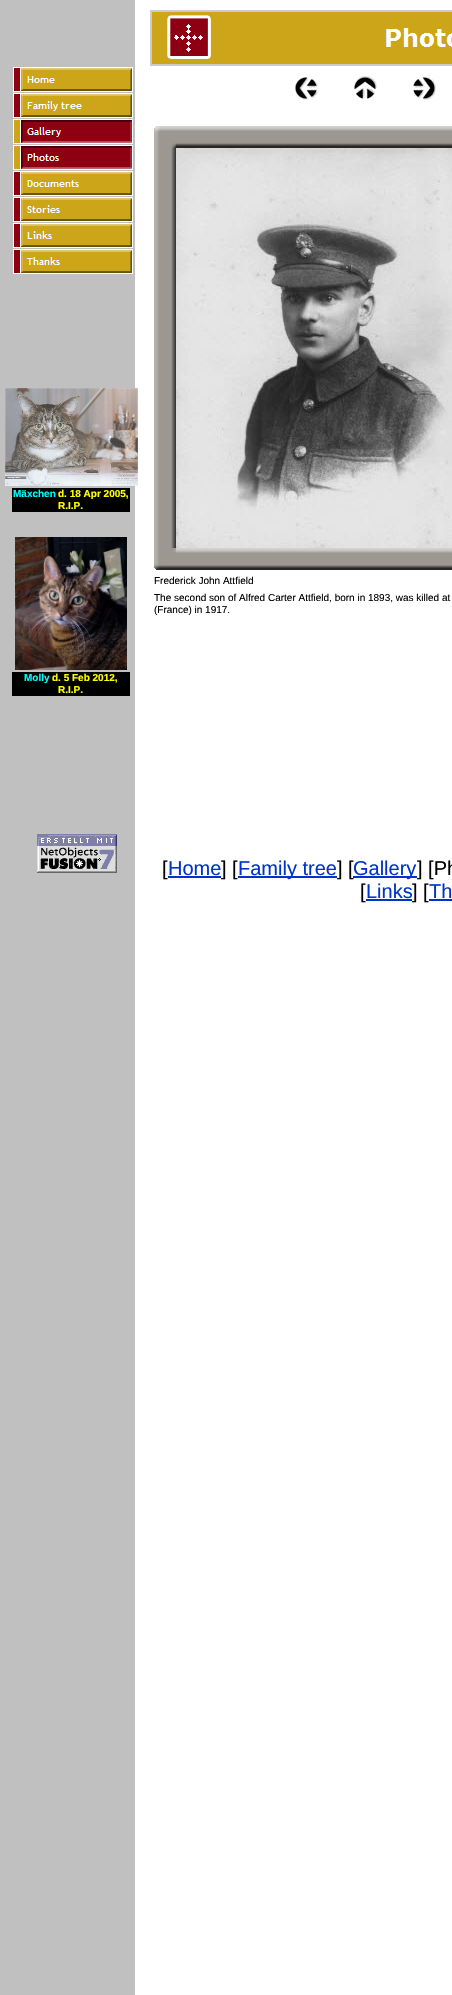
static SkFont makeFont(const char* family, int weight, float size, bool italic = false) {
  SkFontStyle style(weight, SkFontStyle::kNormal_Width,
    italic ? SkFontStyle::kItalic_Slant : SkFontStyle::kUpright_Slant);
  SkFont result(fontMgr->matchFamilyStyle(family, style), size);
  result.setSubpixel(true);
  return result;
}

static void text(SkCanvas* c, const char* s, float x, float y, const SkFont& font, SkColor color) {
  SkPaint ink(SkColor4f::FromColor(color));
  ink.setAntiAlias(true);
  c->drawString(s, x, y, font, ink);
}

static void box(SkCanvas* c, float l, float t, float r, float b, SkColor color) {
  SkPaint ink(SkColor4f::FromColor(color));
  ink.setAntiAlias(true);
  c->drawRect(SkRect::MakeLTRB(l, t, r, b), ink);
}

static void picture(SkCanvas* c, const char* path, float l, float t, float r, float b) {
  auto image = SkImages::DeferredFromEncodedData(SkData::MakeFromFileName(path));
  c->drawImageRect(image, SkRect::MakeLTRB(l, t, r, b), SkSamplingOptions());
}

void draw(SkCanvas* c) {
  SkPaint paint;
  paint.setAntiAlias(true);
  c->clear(0xffffffff);
  box(c, 0, 0, 135, 1995, 0xffc0c0c0);
  picture(c, "img_01.png", 13, 67, 133, 92);
  picture(c, "img_02.png", 13, 93, 133, 118);
  picture(c, "img_03.png", 13, 119, 133, 144);
  picture(c, "img_04.png", 13, 145, 133, 170);
  picture(c, "img_05.png", 13, 171, 133, 196);
  picture(c, "img_06.png", 13, 197, 133, 222);
  picture(c, "img_07.png", 13, 223, 133, 248);
  picture(c, "img_08.png", 13, 249, 133, 274);
  picture(c, "img_09.png", 5, 388, 138, 486);
  box(c, 12, 488, 130, 512, 0xff000000);
  SkFont face1 = makeFont("Liberation Sans", 700, 10);
  text(c, "Mäxchen", 13, 497, face1, 0xff00ffff);
  text(c, "d. 18 Apr 2005,", 58, 497, face1, 0xffffff00);
  text(c, "R.I.P.", 58, 509, face1, 0xffffff00);
  picture(c, "img_10.png", 15, 537, 127, 670);
  box(c, 12, 672, 130, 696, 0xff000000);
  text(c, "Molly", 24, 681, face1, 0xff00ffff);
  text(c, "d. 5 Feb 2012,", 52, 681, face1, 0xffffff00);
  text(c, "R.I.P.", 58, 693, face1, 0xffffff00);
  picture(c, "img_11.png", 37, 834, 117, 873);
  picture(c, "img_12.png", 150, 10, 452, 66);
  picture(c, "img_13.png", 295, 77, 318, 100);
  picture(c, "img_14.png", 354, 76, 377, 99);
  picture(c, "img_15.png", 413, 77, 436, 100);
  picture(c, "img_16.png", 154, 126, 176, 148);
  picture(c, "img_17.png", 176, 126, 452, 148);
  picture(c, "img_18.png", 154, 148, 176, 548);
  picture(c, "img_19.png", 176, 148, 452, 548);
  picture(c, "img_20.png", 154, 548, 176, 570);
  picture(c, "img_17.png", 176, 548, 452, 570);
  SkFont face2 = makeFont("Liberation Sans", 400, 10);
  text(c, "Frederick John Attfield", 154, 584, face2, 0xff000000);
  text(c, "The second son of Alfred Carter Attfield, born in 1893, was killed at", 154, 601, face2, 0xff000000);
  text(c, "(France) in 1917.", 154, 613, face2, 0xff000000);
  SkFont face3 = makeFont("Liberation Sans", 400, 20);
  text(c, "[", 162, 875, face3, 0xff000000);
  text(c, "Home", 168, 875, face3, 0xff0033cc);
  box(c, 168, 876, 221, 878, 0xff0033cc);
  text(c, "] [", 221, 875, face3, 0xff000000);
  box(c, 238, 876, 337, 878, 0xff0033cc);
  text(c, "Family tree", 238, 875, face3, 0xff0033cc);
  text(c, "] [", 337, 875, face3, 0xff000000);
  box(c, 353, 876, 417, 878, 0xff0033cc);
  text(c, "Gallery", 353, 875, face3, 0xff0033cc);
  text(c, "] [Ph", 417, 875, face3, 0xff000000);
  text(c, "[", 360, 898, face3, 0xff000000);
  text(c, "Links", 366, 898, face3, 0xff0033cc);
  box(c, 366, 899, 412, 901, 0xff0033cc);
  text(c, "] [", 412, 898, face3, 0xff000000);
  text(c, "Th", 429, 898, face3, 0xff0033cc);
  box(c, 429, 899, 452, 901, 0xff0033cc);
}
